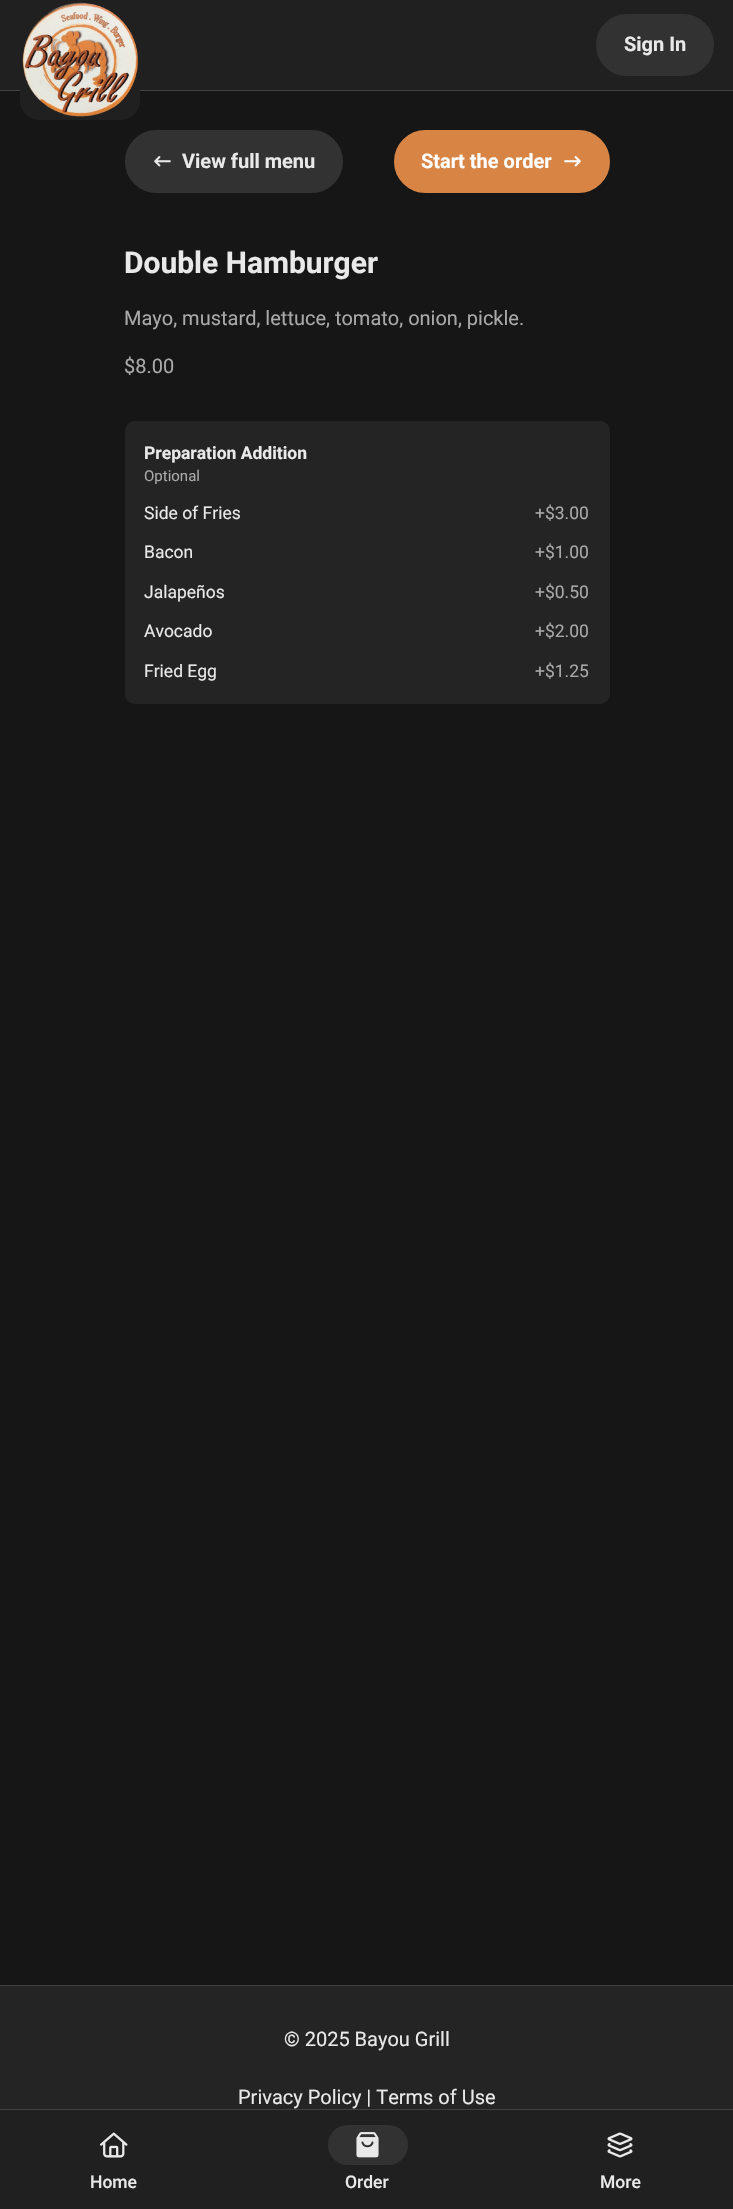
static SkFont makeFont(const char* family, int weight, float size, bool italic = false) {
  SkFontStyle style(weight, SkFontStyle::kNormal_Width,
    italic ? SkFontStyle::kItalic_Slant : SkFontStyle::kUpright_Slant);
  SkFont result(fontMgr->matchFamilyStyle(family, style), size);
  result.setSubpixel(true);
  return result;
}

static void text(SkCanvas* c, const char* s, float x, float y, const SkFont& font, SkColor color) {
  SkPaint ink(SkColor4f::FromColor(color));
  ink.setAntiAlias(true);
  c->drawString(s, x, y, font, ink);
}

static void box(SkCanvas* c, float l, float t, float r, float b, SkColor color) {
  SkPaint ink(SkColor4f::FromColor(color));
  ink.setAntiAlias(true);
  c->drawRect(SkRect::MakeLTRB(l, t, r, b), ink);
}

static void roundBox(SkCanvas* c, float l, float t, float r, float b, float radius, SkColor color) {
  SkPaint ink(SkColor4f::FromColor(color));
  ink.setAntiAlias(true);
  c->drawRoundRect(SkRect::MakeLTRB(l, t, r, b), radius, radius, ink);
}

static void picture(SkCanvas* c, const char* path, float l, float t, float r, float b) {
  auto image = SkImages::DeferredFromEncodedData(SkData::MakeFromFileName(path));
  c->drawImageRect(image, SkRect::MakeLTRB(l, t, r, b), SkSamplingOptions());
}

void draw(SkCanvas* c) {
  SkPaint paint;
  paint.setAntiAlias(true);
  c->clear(0xff161616);
  box(c, 0, 0, 733, 90, 0xff202020);
  box(c, 0, 90, 733, 91, 0xff404040);
  paint.setColor(0xff202020);
  c->drawPath(SkPathBuilder().moveTo(20, 0).lineTo(140, 0).lineTo(140, 100).cubicTo(140, 111, 131, 120, 120, 120).lineTo(40, 120).cubicTo(29, 120, 20, 111, 20, 100).close().detach(), paint);
  picture(c, "img_01.png", 22, 2, 138, 117);
  paint.setColor(0xff323232);
  c->drawRoundRect(SkRect::MakeLTRB(597.5f, 15.5f, 712.5f, 74.5f), 29.5f, 29.5f, paint);
  paint.setStyle(SkPaint::kStroke_Style);
  paint.setStrokeWidth(3);
  c->drawRoundRect(SkRect::MakeLTRB(597.5f, 15.5f, 712.5f, 74.5f), 29.5f, 29.5f, paint);
  SkFont face1 = makeFont("Roboto", 700, 20);
  text(c, "Sign In", 624, 51, face1, 0xffe9e9e9);
  paint.setStyle(SkPaint::kFill_Style);
  c->drawRoundRect(SkRect::MakeLTRB(126.5f, 131.5f, 341.5f, 191.5f), 30, 30, paint);
  paint.setStyle(SkPaint::kStroke_Style);
  c->drawRoundRect(SkRect::MakeLTRB(126.5f, 131.5f, 341.5f, 191.5f), 30, 30, paint);
  picture(c, "img_02.png", 154, 156, 171, 167);
  text(c, "View full menu", 182, 168, face1, 0xffe9e9e9);
  paint.setStyle(SkPaint::kFill_Style);
  paint.setColor(0xffd78445);
  c->drawRoundRect(SkRect::MakeLTRB(395.5f, 131.5f, 608.5f, 191.5f), 30, 30, paint);
  paint.setStyle(SkPaint::kStroke_Style);
  c->drawRoundRect(SkRect::MakeLTRB(395.5f, 131.5f, 608.5f, 191.5f), 30, 30, paint);
  text(c, "Start the order", 421, 168, face1, 0xffffffff);
  picture(c, "img_03.png", 564, 156, 581, 167);
  SkFont face2 = makeFont("Roboto", 700, 30);
  text(c, "Double Hamburger", 124, 273, face2, 0xffe9e9e9);
  SkFont face3 = makeFont("Roboto", 400, 20);
  text(c, "Mayo, mustard, lettuce, tomato, onion, pickle.", 124, 325, face3, 0xffa9a9a9);
  text(c, "$8.00", 124, 373, face3, 0xffa9a9a9);
  roundBox(c, 125, 421, 610, 704, 10, 0xff242424);
  SkFont face4 = makeFont("Roboto", 700, 17.5f);
  text(c, "Preparation Addition", 144, 459, face4, 0xffe9e9e9);
  SkFont face5 = makeFont("Roboto", 400, 15);
  text(c, "Optional", 144, 481, face5, 0xffa9a9a9);
  SkFont face6 = makeFont("Roboto", 400, 17.5f);
  text(c, "Side of Fries", 144, 519, face6, 0xffe9e9e9);
  text(c, "+$3.00", 535, 519, face6, 0xffa9a9a9);
  text(c, "Bacon", 144, 558, face6, 0xffe9e9e9);
  text(c, "+$1.00", 535, 558, face6, 0xffa9a9a9);
  text(c, "Jalapeños", 144, 598, face6, 0xffe9e9e9);
  text(c, "+$0.50", 535, 598, face6, 0xffa9a9a9);
  text(c, "Avocado", 144, 637, face6, 0xffe9e9e9);
  text(c, "+$2.00", 535, 637, face6, 0xffa9a9a9);
  text(c, "Fried Egg", 144, 677, face6, 0xffe9e9e9);
  text(c, "+$1.25", 535, 677, face6, 0xffa9a9a9);
  box(c, 0, 2110, 733, 2209, 0xff202020);
  box(c, 0, 2109, 733, 2110, 0xff404040);
  picture(c, "img_04.png", 100, 2132, 128, 2158);
  SkFont face7 = makeFont("Roboto", 500, 17.5f);
  text(c, "Home", 90, 2188, face7, 0xffe9e9e9);
  roundBox(c, 328, 2125, 408, 2165, 20, 0xff323232);
  picture(c, "img_05.png", 356, 2132, 379, 2158);
  text(c, "Order", 345, 2188, face7, 0xffe9e9e9);
  picture(c, "img_06.png", 607, 2132, 633, 2158);
  text(c, "More", 600, 2188, face7, 0xffe9e9e9);
  box(c, 0, 1986, 733, 2109, 0xff242424);
  box(c, 0, 1985, 733, 1986, 0xff404040);
  text(c, "© 2025 Bayou Grill", 284, 2046, face3, 0xffe9e9e9);
  text(c, "Privacy Policy | Terms of Use", 238, 2104, face3, 0xffe9e9e9);
}
